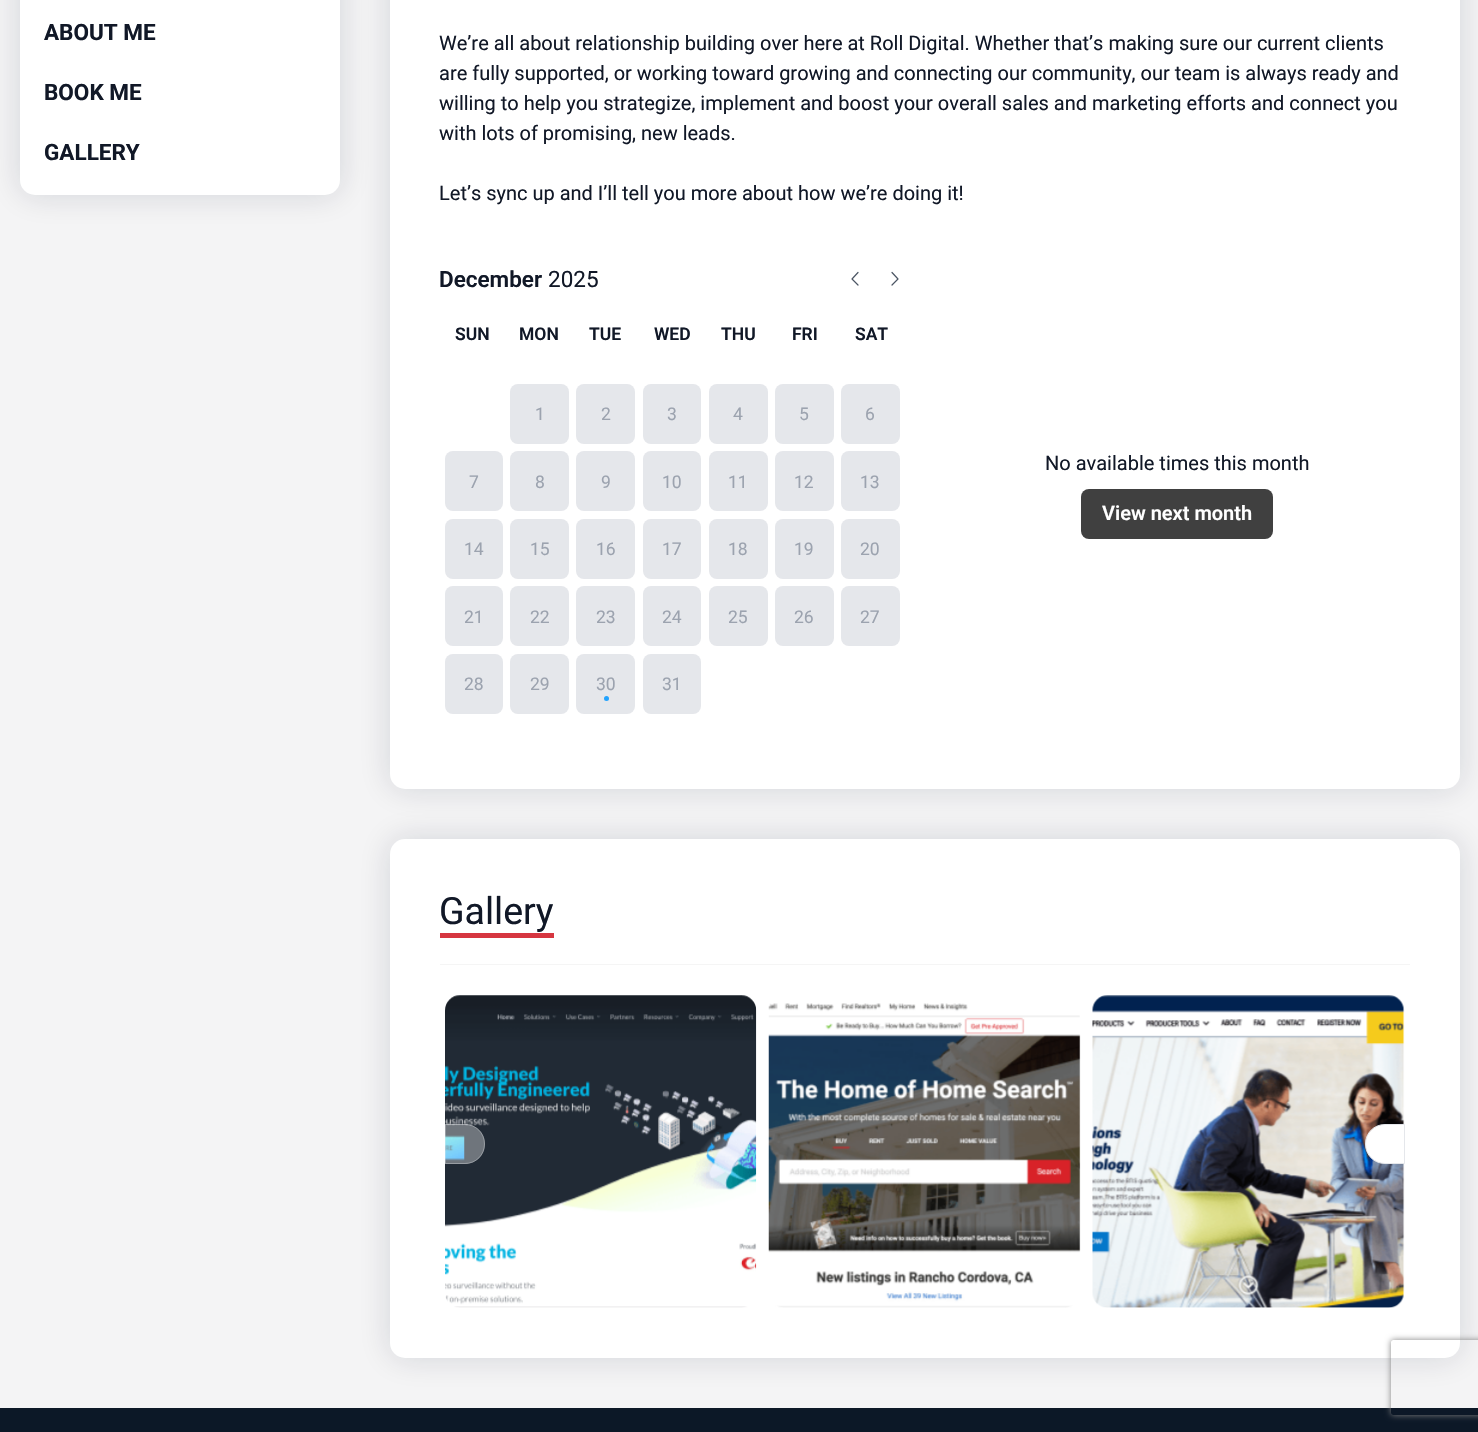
static SkFont makeFont(const char* family, int weight, float size, bool italic = false) {
  SkFontStyle style(weight, SkFontStyle::kNormal_Width,
    italic ? SkFontStyle::kItalic_Slant : SkFontStyle::kUpright_Slant);
  SkFont result(fontMgr->matchFamilyStyle(family, style), size);
  result.setSubpixel(true);
  return result;
}

static void text(SkCanvas* c, const char* s, float x, float y, const SkFont& font, SkColor color) {
  SkPaint ink(SkColor4f::FromColor(color));
  ink.setAntiAlias(true);
  c->drawString(s, x, y, font, ink);
}

static void box(SkCanvas* c, float l, float t, float r, float b, SkColor color) {
  SkPaint ink(SkColor4f::FromColor(color));
  ink.setAntiAlias(true);
  c->drawRect(SkRect::MakeLTRB(l, t, r, b), ink);
}

static void roundBox(SkCanvas* c, float l, float t, float r, float b, float radius, SkColor color) {
  SkPaint ink(SkColor4f::FromColor(color));
  ink.setAntiAlias(true);
  c->drawRoundRect(SkRect::MakeLTRB(l, t, r, b), radius, radius, ink);
}

static void picture(SkCanvas* c, const char* path, float l, float t, float r, float b) {
  auto image = SkImages::DeferredFromEncodedData(SkData::MakeFromFileName(path));
  c->drawImageRect(image, SkRect::MakeLTRB(l, t, r, b), SkSamplingOptions());
}

void draw(SkCanvas* c) {
  SkPaint paint;
  paint.setAntiAlias(true);
  c->clear(0xfff4f4f5);
  paint.setColor(0x260f112d);
  paint.setMaskFilter(SkMaskFilter::MakeBlur(kNormal_SkBlurStyle, 16));
  c->drawRoundRect(SkRect::MakeLTRB(20, -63, 340, 195), 15, 15, paint);
  paint.setMaskFilter(nullptr);
  roundBox(c, 20, -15, 340, 195, 15, 0xffffffff);
  SkFont face1 = makeFont("Roboto", 700, 22.5f);
  text(c, "ABOUT ME", 44, 40, face1, 0xff111827);
  text(c, "BOOK ME", 44, 100, face1, 0xff111827);
  text(c, "GALLERY", 44, 160, face1, 0xff111827);
  paint.setMaskFilter(SkMaskFilter::MakeBlur(kNormal_SkBlurStyle, 16));
  c->drawRoundRect(SkRect::MakeLTRB(390, -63, 1460, 789), 15, 15, paint);
  paint.setMaskFilter(nullptr);
  roundBox(c, 390, -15, 1460, 789, 15, 0xffffffff);
  SkFont face2 = makeFont("Roboto", 400, 20);
  text(c, "We’re all about relationship building over here at Roll Digital. Whether that’s making sure our current clients", 439, 50, face2, 0xff111827);
  text(c, "are fully supported, or working toward growing and connecting our community, our team is always ready and", 439, 80, face2, 0xff111827);
  text(c, "willing to help you strategize, implement and boost your overall sales and marketing efforts and connect you", 439, 110, face2, 0xff111827);
  text(c, "with lots of promising, new leads.", 439, 140, face2, 0xff111827);
  text(c, "Let’s sync up and I’ll tell you more about how we’re doing it!", 439, 200, face2, 0xff111827);
  SkFont face3 = makeFont("Roboto", 600, 22.5f);
  text(c, "December", 439, 287, face3, 0xff111827);
  SkFont face4 = makeFont("Roboto", 400, 22.5f);
  text(c, "2025", 548, 287, face4, 0xff111827);
  paint.setStyle(SkPaint::kStroke_Style);
  paint.setStrokeWidth(1.2f);
  paint.setStrokeCap(SkPaint::kRound_Cap);
  paint.setStrokeJoin(SkPaint::kRound_Join);
  paint.setColor(0xff4b5563);
  c->drawPath(SkPathBuilder().moveTo(858, 285).lineTo(852, 279).lineTo(858, 272.5f).moveTo(892, 272.5f).lineTo(898, 279).lineTo(892, 285).detach(), paint);
  SkFont face5 = makeFont("Roboto", 600, 17.5f);
  text(c, "SUN", 455, 340, face5, 0xff111827);
  text(c, "MON", 519, 340, face5, 0xff111827);
  text(c, "TUE", 589, 340, face5, 0xff111827);
  text(c, "WED", 654, 340, face5, 0xff111827);
  text(c, "THU", 721, 340, face5, 0xff111827);
  text(c, "FRI", 792, 340, face5, 0xff111827);
  text(c, "SAT", 855, 340, face5, 0xff111827);
  roundBox(c, 510, 384, 569, 444, 8, 0xffe5e7eb);
  SkFont face6 = makeFont("Roboto", 400, 17.5f);
  text(c, "1", 535, 420, face6, 0xff9ca3af);
  roundBox(c, 576, 384, 635, 444, 8, 0xffe5e7eb);
  text(c, "2", 601, 420, face6, 0xff9ca3af);
  roundBox(c, 643, 384, 701, 444, 8, 0xffe5e7eb);
  text(c, "3", 667, 420, face6, 0xff9ca3af);
  roundBox(c, 709, 384, 768, 444, 8, 0xffe5e7eb);
  text(c, "4", 733, 420, face6, 0xff9ca3af);
  roundBox(c, 775, 384, 834, 444, 8, 0xffe5e7eb);
  text(c, "5", 799, 420, face6, 0xff9ca3af);
  roundBox(c, 841, 384, 900, 444, 8, 0xffe5e7eb);
  text(c, "6", 865, 420, face6, 0xff9ca3af);
  roundBox(c, 445, 451, 503, 511, 8, 0xffe5e7eb);
  text(c, "7", 469, 488, face6, 0xff9ca3af);
  roundBox(c, 510, 451, 569, 511, 8, 0xffe5e7eb);
  text(c, "8", 535, 488, face6, 0xff9ca3af);
  roundBox(c, 576, 451, 635, 511, 8, 0xffe5e7eb);
  text(c, "9", 601, 488, face6, 0xff9ca3af);
  roundBox(c, 643, 451, 701, 511, 8, 0xffe5e7eb);
  text(c, "10", 662, 488, face6, 0xff9ca3af);
  roundBox(c, 709, 451, 768, 511, 8, 0xffe5e7eb);
  text(c, "11", 728, 488, face6, 0xff9ca3af);
  roundBox(c, 775, 451, 834, 511, 8, 0xffe5e7eb);
  text(c, "12", 794, 488, face6, 0xff9ca3af);
  roundBox(c, 841, 451, 900, 511, 8, 0xffe5e7eb);
  text(c, "13", 860, 488, face6, 0xff9ca3af);
  roundBox(c, 445, 519, 503, 579, 8, 0xffe5e7eb);
  text(c, "14", 464, 555, face6, 0xff9ca3af);
  roundBox(c, 510, 519, 569, 579, 8, 0xffe5e7eb);
  text(c, "15", 530, 555, face6, 0xff9ca3af);
  roundBox(c, 576, 519, 635, 579, 8, 0xffe5e7eb);
  text(c, "16", 596, 555, face6, 0xff9ca3af);
  roundBox(c, 643, 519, 701, 579, 8, 0xffe5e7eb);
  text(c, "17", 662, 555, face6, 0xff9ca3af);
  roundBox(c, 709, 519, 768, 579, 8, 0xffe5e7eb);
  text(c, "18", 728, 555, face6, 0xff9ca3af);
  roundBox(c, 775, 519, 834, 579, 8, 0xffe5e7eb);
  text(c, "19", 794, 555, face6, 0xff9ca3af);
  roundBox(c, 841, 519, 900, 579, 8, 0xffe5e7eb);
  text(c, "20", 860, 555, face6, 0xff9ca3af);
  roundBox(c, 445, 586, 503, 646, 8, 0xffe5e7eb);
  text(c, "21", 464, 623, face6, 0xff9ca3af);
  roundBox(c, 510, 586, 569, 646, 8, 0xffe5e7eb);
  text(c, "22", 530, 623, face6, 0xff9ca3af);
  roundBox(c, 576, 586, 635, 646, 8, 0xffe5e7eb);
  text(c, "23", 596, 623, face6, 0xff9ca3af);
  roundBox(c, 643, 586, 701, 646, 8, 0xffe5e7eb);
  text(c, "24", 662, 623, face6, 0xff9ca3af);
  roundBox(c, 709, 586, 768, 646, 8, 0xffe5e7eb);
  text(c, "25", 728, 623, face6, 0xff9ca3af);
  roundBox(c, 775, 586, 834, 646, 8, 0xffe5e7eb);
  text(c, "26", 794, 623, face6, 0xff9ca3af);
  roundBox(c, 841, 586, 900, 646, 8, 0xffe5e7eb);
  text(c, "27", 860, 623, face6, 0xff9ca3af);
  roundBox(c, 445, 654, 503, 714, 8, 0xffe5e7eb);
  text(c, "28", 464, 690, face6, 0xff9ca3af);
  roundBox(c, 510, 654, 569, 714, 8, 0xffe5e7eb);
  text(c, "29", 530, 690, face6, 0xff9ca3af);
  roundBox(c, 576, 654, 635, 714, 8, 0xffe5e7eb);
  text(c, "30", 596, 690, face6, 0xff9ca3af);
  paint.setStyle(SkPaint::kFill_Style);
  paint.setColor(0xff22a3fe);
  c->drawCircle(606.5f, 698.5f, 2.5f, paint);
  roundBox(c, 643, 654, 701, 714, 8, 0xffe5e7eb);
  text(c, "31", 662, 690, face6, 0xff9ca3af);
  text(c, "No available times this month", 1045, 470, face2, 0xff111827);
  roundBox(c, 1081, 489, 1273, 539, 8, 0xff404040);
  SkFont face7 = makeFont("Roboto", 600, 20);
  text(c, "View next month", 1102, 520, face7, 0xffffffff);
  paint.setColor(0x260f112d);
  paint.setMaskFilter(SkMaskFilter::MakeBlur(kNormal_SkBlurStyle, 16));
  c->drawRoundRect(SkRect::MakeLTRB(390, 839, 1460, 1358), 15, 15, paint);
  paint.setMaskFilter(nullptr);
  roundBox(c, 390, 839, 1460, 1358, 15, 0xffffffff);
  SkFont face8 = makeFont("Roboto", 400, 37.5f);
  text(c, "Gallery", 439, 924, face8, 0xff111827);
  box(c, 440, 933, 554, 938, 0xffd63640);
  box(c, 440, 964, 1410, 965, 0xfff5f5f5);
  picture(c, "img_01.png", 445, 995, 757, 1308);
  picture(c, "img_02.png", 768, 1003, 1081, 1308);
  picture(c, "img_03.png", 1092, 995, 1405, 1308);
  paint.setColor(0x59ffffff);
  c->drawPath(SkPathBuilder().moveTo(445, 1124).lineTo(465, 1124).cubicTo(476, 1124, 485, 1133, 485, 1144).cubicTo(485, 1155, 476, 1164, 465, 1164).lineTo(445, 1164).close().detach(), paint);
  paint.setStyle(SkPaint::kStroke_Style);
  paint.setStrokeWidth(1);
  paint.setStrokeCap(SkPaint::kButt_Cap);
  paint.setStrokeJoin(SkPaint::kMiter_Join);
  paint.setColor(0x59e5e7eb);
  c->drawPath(SkPathBuilder().moveTo(445.5f, 1124.5f).lineTo(465, 1124.5f).cubicTo(476, 1124.5f, 484.5f, 1133, 484.5f, 1144).cubicTo(484.5f, 1155, 476, 1163.5f, 465, 1163.5f).lineTo(445.5f, 1163.5f).close().detach(), paint);
  paint.setStyle(SkPaint::kFill_Style);
  paint.setColor(0xffffffff);
  c->drawPath(SkPathBuilder().moveTo(1385, 1124.5f).lineTo(1404.5f, 1124.5f).lineTo(1404.5f, 1163.5f).lineTo(1385, 1163.5f).cubicTo(1374, 1163.5f, 1365.5f, 1155, 1365.5f, 1144).cubicTo(1365.5f, 1133, 1374, 1124.5f, 1385, 1124.5f).close().detach(), paint);
  paint.setStyle(SkPaint::kStroke_Style);
  paint.setColor(0xffe5e7eb);
  c->drawPath(SkPathBuilder().moveTo(1385, 1124.5f).lineTo(1404.5f, 1124.5f).lineTo(1404.5f, 1163.5f).lineTo(1385, 1163.5f).cubicTo(1374, 1163.5f, 1365.5f, 1155, 1365.5f, 1144).cubicTo(1365.5f, 1133, 1374, 1124.5f, 1385, 1124.5f).close().detach(), paint);
  box(c, 0, 1408, 1478, 1432, 0xff0c1827);
  c->save();
  c->clipPath(SkPathBuilder(SkPathFillType::kEvenOdd).moveTo(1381, 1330).lineTo(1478, 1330).lineTo(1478, 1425).lineTo(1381, 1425).close().moveTo(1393.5f, 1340).lineTo(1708.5f, 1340).cubicTo(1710, 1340, 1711, 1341, 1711, 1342.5f).lineTo(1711, 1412.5f).cubicTo(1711, 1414, 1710, 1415, 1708.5f, 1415).lineTo(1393.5f, 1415).cubicTo(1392, 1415, 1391, 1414, 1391, 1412.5f).lineTo(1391, 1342.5f).cubicTo(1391, 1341, 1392, 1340, 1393.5f, 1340).close().detach(), true);
  paint.setStyle(SkPaint::kFill_Style);
  paint.setColor(0xff808080);
  paint.setMaskFilter(SkMaskFilter::MakeBlur(kNormal_SkBlurStyle, 3));
  c->drawRoundRect(SkRect::MakeLTRB(1391, 1340, 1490, 1415), 2.5f, 2.5f, paint);
  paint.setMaskFilter(nullptr);
  c->restore();
}
